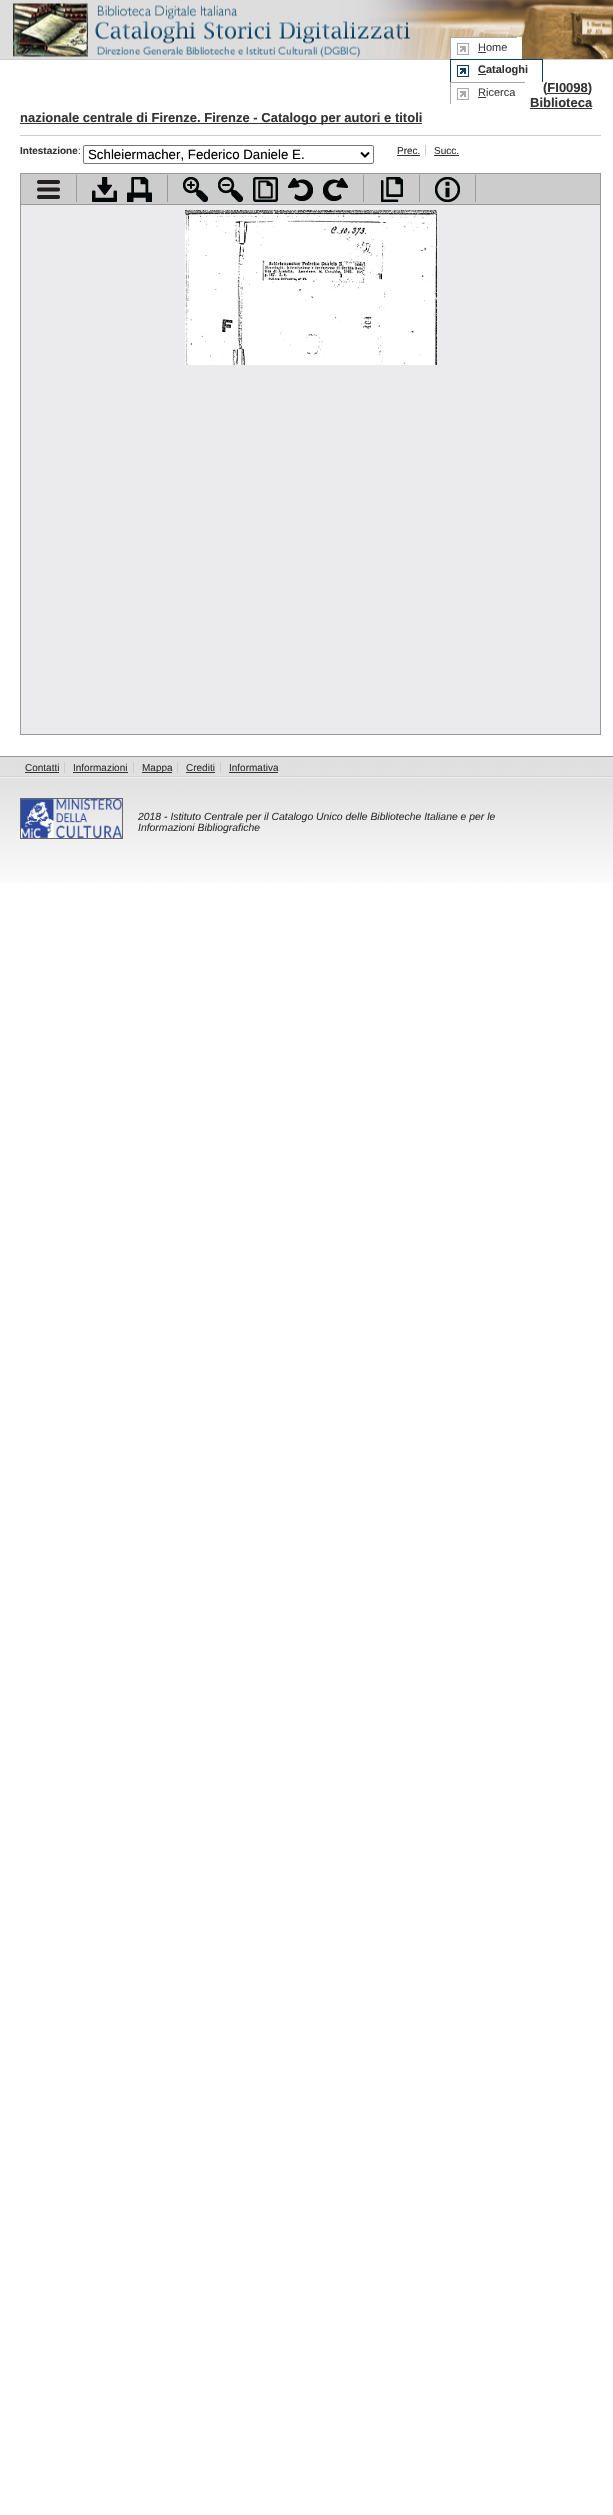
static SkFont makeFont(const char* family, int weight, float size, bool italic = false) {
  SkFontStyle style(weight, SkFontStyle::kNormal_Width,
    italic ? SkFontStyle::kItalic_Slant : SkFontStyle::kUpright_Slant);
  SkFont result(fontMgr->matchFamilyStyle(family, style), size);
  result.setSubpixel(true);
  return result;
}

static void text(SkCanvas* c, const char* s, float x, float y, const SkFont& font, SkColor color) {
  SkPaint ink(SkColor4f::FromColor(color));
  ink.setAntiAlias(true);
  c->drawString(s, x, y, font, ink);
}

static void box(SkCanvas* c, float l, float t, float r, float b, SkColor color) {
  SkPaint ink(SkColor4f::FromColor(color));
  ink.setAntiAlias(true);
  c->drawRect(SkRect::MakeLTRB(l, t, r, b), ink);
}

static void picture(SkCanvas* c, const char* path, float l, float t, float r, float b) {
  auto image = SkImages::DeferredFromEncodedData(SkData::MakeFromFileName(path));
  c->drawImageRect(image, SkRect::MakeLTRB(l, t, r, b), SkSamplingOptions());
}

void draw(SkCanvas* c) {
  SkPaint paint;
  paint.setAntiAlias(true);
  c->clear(0xffffffff);
  box(c, 0, 59, 613, 60, 0xffcccccc);
  picture(c, "img_01.png", 0, 0, 613, 59);
  picture(c, "img_02.png", 450, 37, 517, 59);
  box(c, 517, 37, 522, 59, 0xffffffff);
  SkFont face1 = makeFont("Liberation Sans", 400, 11);
  text(c, "Home", 478, 51, face1, 0xff3f3f3f);
  box(c, 478, 52, 486, 53, 0xff3f3f3f);
  picture(c, "img_03.png", 450, 59, 543, 82);
  box(c, 542, 60, 543, 82, 0xff0f3f65);
  box(c, 478, 74, 486, 75, 0xff333333);
  SkFont face2 = makeFont("Liberation Sans", 700, 11);
  text(c, "Cataloghi", 478, 73, face2, 0xff333333);
  picture(c, "img_04.png", 450, 82, 525, 104);
  text(c, "Ricerca", 478, 96, face1, 0xff3f3f3f);
  box(c, 478, 97, 486, 98, 0xff3f3f3f);
  SkFont face3 = makeFont("Liberation Sans", 700, 13);
  text(c, "(FI0098)", 543, 92, face3, 0xff333333);
  box(c, 547, 93, 588, 94, 0xff333333);
  text(c, "Biblioteca", 530, 107, face3, 0xff333333);
  box(c, 530, 108, 592, 109, 0xff333333);
  box(c, 20, 123, 422, 124, 0xff333333);
  text(c, "nazionale centrale di Firenze. Firenze - Catalogo per autori e titoli", 20, 122, face3, 0xff333333);
  box(c, 20, 135, 601, 136, 0xffcccccc);
  SkFont face4 = makeFont("Liberation Sans", 700, 10);
  text(c, "Intestazione", 20, 154, face4, 0xff333333);
  SkFont face5 = makeFont("Liberation Sans", 400, 10);
  text(c, ":", 78, 154, face5, 0xff333333);
  paint.setStyle(SkPaint::kStroke_Style);
  paint.setStrokeWidth(1);
  paint.setColor(0xff767676);
  c->drawRoundRect(SkRect::MakeLTRB(83.5f, 145.5f, 373.5f, 163.5f), 1.5f, 1.5f, paint);
  paint.setStrokeWidth(2);
  paint.setColor(0xff000000);
  c->drawPath(SkPathBuilder().moveTo(361, 152.5f).lineTo(365, 156.5f).lineTo(369, 152.5f).detach(), paint);
  SkFont face6 = makeFont("Liberation Sans", 400, 13.3f);
  text(c, "Schleiermacher, Federico Daniele E.", 88, 159, face6, 0xff000000);
  text(c, "Prec.", 397, 154, face5, 0xff333333);
  box(c, 425, 145, 426, 156, 0xffcccccc);
  box(c, 397, 155, 420, 156, 0xff333333);
  text(c, "Succ.", 434, 154, face5, 0xff333333);
  box(c, 434, 155, 459, 156, 0xff333333);
  paint.setStyle(SkPaint::kFill_Style);
  paint.setColor(0xffcccccc);
  c->drawRect(SkRect::MakeLTRB(20.5f, 173.5f, 600.5f, 204.5f), paint);
  paint.setStyle(SkPaint::kStroke_Style);
  paint.setStrokeWidth(1);
  paint.setColor(0xff999999);
  c->drawRect(SkRect::MakeLTRB(20.5f, 173.5f, 600.5f, 204.5f), paint);
  box(c, 76, 175, 77, 202, 0xff999999);
  picture(c, "img_05.png", 37, 180, 60, 199);
  box(c, 167, 175, 168, 202, 0xff999999);
  picture(c, "img_06.png", 92, 177, 117, 202);
  picture(c, "img_07.png", 127, 177, 152, 202);
  box(c, 363, 175, 364, 202, 0xff999999);
  picture(c, "img_08.png", 183, 177, 208, 202);
  picture(c, "img_09.png", 218, 177, 243, 202);
  picture(c, "img_10.png", 253, 177, 278, 202);
  picture(c, "img_11.png", 288, 178, 313, 201);
  picture(c, "img_12.png", 323, 178, 348, 201);
  box(c, 419, 175, 420, 202, 0xff999999);
  picture(c, "img_13.png", 381, 177, 403, 202);
  box(c, 475, 175, 476, 202, 0xff999999);
  picture(c, "img_14.png", 435, 177, 460, 202);
  box(c, 21, 205, 600, 734, 0xffebeaec);
  box(c, 600, 205, 601, 735, 0xff999999);
  box(c, 20, 734, 601, 735, 0xff999999);
  box(c, 20, 205, 21, 735, 0xff999999);
  picture(c, "img_15.png", 185, 210, 437, 365);
  picture(c, "img_16.png", 0, 757, 613, 883);
  box(c, 0, 756, 613, 757, 0xff999999);
  picture(c, "img_17.png", 0, 776, 613, 778);
  text(c, "Contatti", 25, 771, face5, 0xff333333);
  box(c, 64, 762, 65, 773, 0xffcccccc);
  box(c, 25, 772, 59, 773, 0xff333333);
  text(c, "Informazioni", 73, 771, face5, 0xff333333);
  box(c, 133, 762, 134, 773, 0xffcccccc);
  box(c, 73, 772, 128, 773, 0xff333333);
  box(c, 142, 772, 172, 773, 0xff333333);
  text(c, "Mappa", 142, 771, face5, 0xff333333);
  box(c, 177, 762, 178, 773, 0xffcccccc);
  text(c, "Crediti", 186, 771, face5, 0xff333333);
  box(c, 220, 762, 221, 773, 0xffcccccc);
  box(c, 186, 772, 215, 773, 0xff333333);
  text(c, "Informativa", 229, 771, face5, 0xff333333);
  box(c, 229, 772, 278, 773, 0xff333333);
  paint.setColor(0xff666666);
  c->drawRect(SkRect::MakeLTRB(20.5f, 798.5f, 122.5f, 838.5f), paint);
  picture(c, "img_18.png", 21, 799, 122, 838);
  SkFont face7 = makeFont("Liberation Sans", 400, 10.4f, true);
  text(c, "2018 - Istituto Centrale per il Catalogo Unico delle Biblioteche Italiane e per le", 138, 820, face7, 0xff333333);
  text(c, "Informazioni Bibliografiche", 138, 831, face7, 0xff333333);
}
